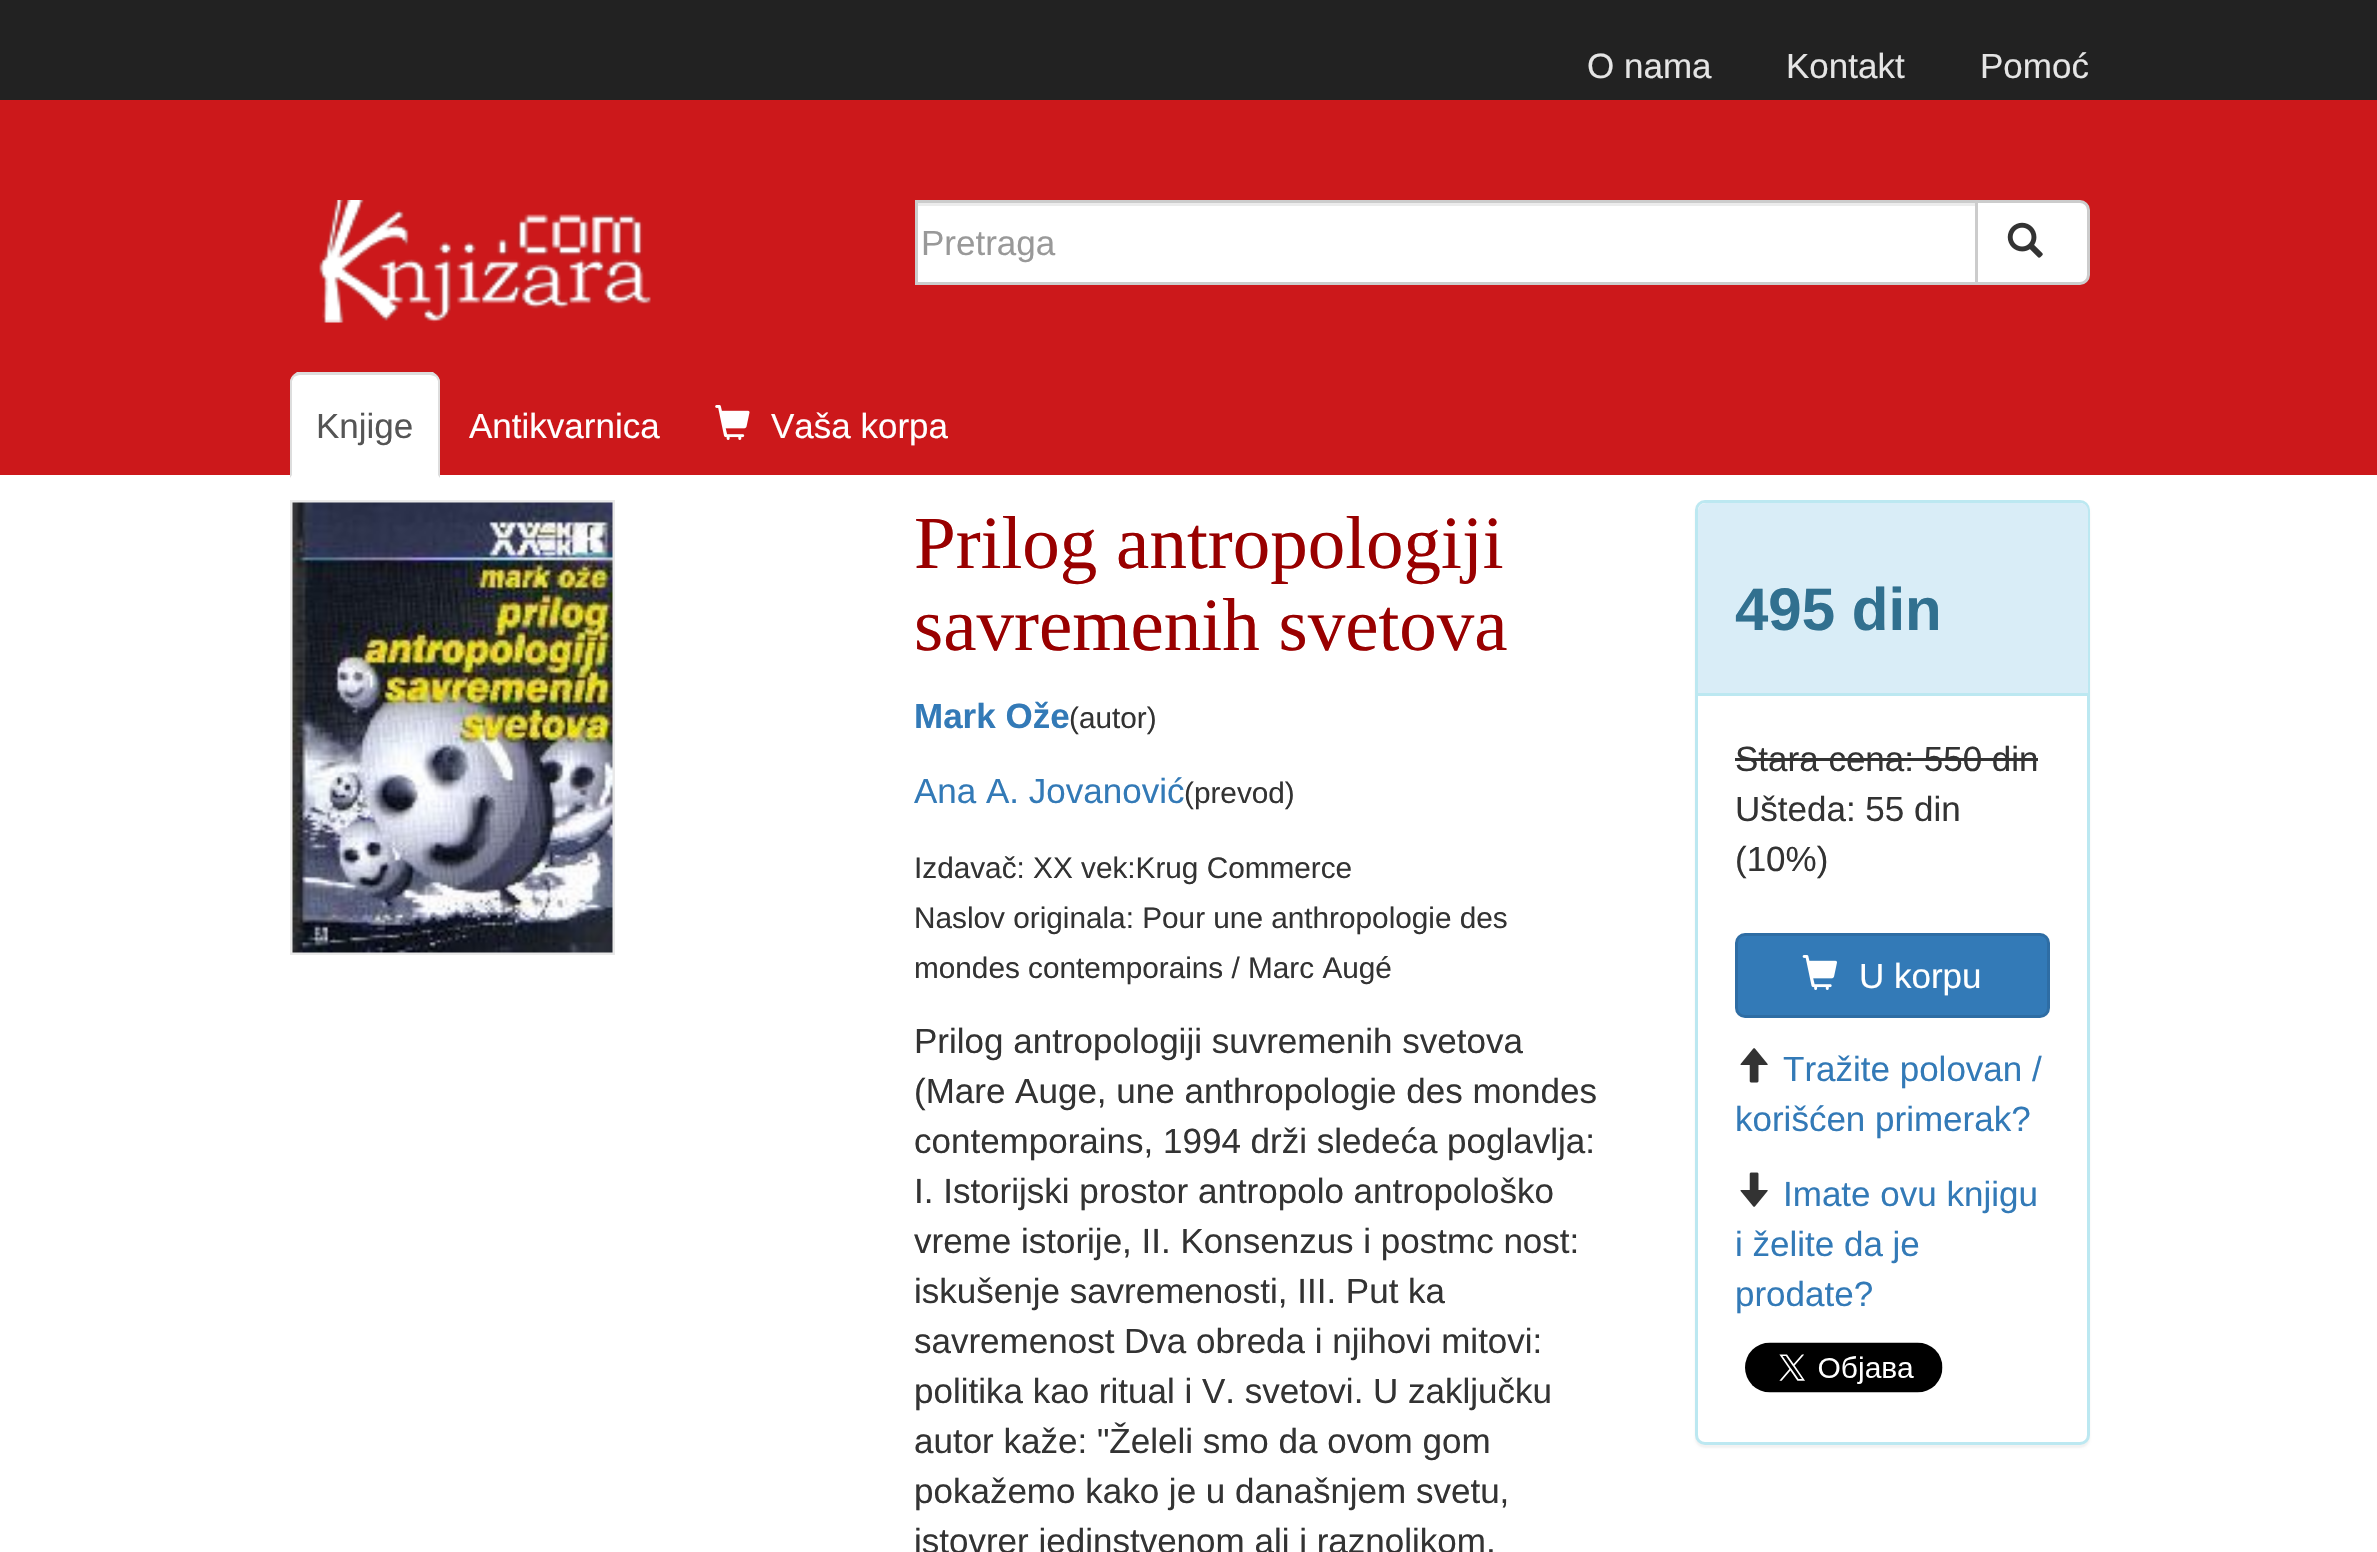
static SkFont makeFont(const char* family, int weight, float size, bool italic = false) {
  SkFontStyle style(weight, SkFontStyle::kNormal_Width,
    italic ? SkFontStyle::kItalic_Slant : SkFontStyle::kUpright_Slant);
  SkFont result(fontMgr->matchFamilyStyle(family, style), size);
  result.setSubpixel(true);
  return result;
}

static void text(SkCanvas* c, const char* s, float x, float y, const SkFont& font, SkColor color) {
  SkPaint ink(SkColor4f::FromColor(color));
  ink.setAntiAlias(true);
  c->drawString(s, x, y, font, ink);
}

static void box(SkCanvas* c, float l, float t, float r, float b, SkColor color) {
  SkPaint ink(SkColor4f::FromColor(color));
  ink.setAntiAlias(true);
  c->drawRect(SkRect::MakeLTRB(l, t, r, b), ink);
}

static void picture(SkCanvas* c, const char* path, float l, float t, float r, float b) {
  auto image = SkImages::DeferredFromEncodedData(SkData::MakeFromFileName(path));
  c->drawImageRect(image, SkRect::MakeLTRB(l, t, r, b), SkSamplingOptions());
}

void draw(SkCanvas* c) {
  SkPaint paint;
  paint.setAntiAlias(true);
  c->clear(0xffffffff);
  box(c, 0, 0, 2377, 100, 0xff222222);
  SkFont face1 = makeFont("Liberation Sans", 400, 35);
  text(c, "O nama", 1587, 78, face1, 0xffe5e5e5);
  text(c, "Kontakt", 1786, 78, face1, 0xffe5e5e5);
  text(c, "Pomoć", 1980, 78, face1, 0xffe5e5e5);
  box(c, 0, 100, 2377, 475, 0xffcc181b);
  picture(c, "img_01.png", 319, 200, 651, 323);
  box(c, 918, 206, 1975, 282, 0xffffffff);
  box(c, 918, 203, 1975, 206, 0xffececec);
  paint.setColor(0xffffffff);
  c->drawPath(SkPathBuilder().moveTo(1976.5f, 201.5f).lineTo(2080, 201.5f).cubicTo(2084.5f, 201.5f, 2088.5f, 205.5f, 2088.5f, 210).lineTo(2088.5f, 275).cubicTo(2088.5f, 279.5f, 2084.5f, 283.5f, 2080, 283.5f).lineTo(1976.5f, 283.5f).close().detach(), paint);
  paint.setStyle(SkPaint::kStroke_Style);
  paint.setStrokeWidth(3);
  paint.setColor(0xffcccccc);
  c->drawPath(SkPathBuilder().moveTo(1976.5f, 201.5f).lineTo(2080, 201.5f).cubicTo(2084.5f, 201.5f, 2088.5f, 205.5f, 2088.5f, 210).lineTo(2088.5f, 275).cubicTo(2088.5f, 279.5f, 2084.5f, 283.5f, 2080, 283.5f).lineTo(1976.5f, 283.5f).close().detach(), paint);
  c->drawRect(SkRect::MakeLTRB(916.5f, 201.5f, 1976.5f, 283.5f), paint);
  text(c, "Pretraga", 921, 255, face1, 0xff999999);
  picture(c, "img_02.png", 2007, 222, 2043, 258);
  paint.setStyle(SkPaint::kFill_Style);
  paint.setColor(0xffffffff);
  c->drawPath(SkPathBuilder().moveTo(300, 373).lineTo(430, 373).cubicTo(435.5f, 373, 440, 377.5f, 440, 383).lineTo(440, 478).lineTo(290, 478).lineTo(290, 383).cubicTo(290, 377.5f, 294.5f, 373, 300, 373).close().detach(), paint);
  paint.setColor(0xffdddddd);
  c->drawPath(SkPathBuilder().moveTo(300, 375).cubicTo(298, 375, 296, 376, 294, 377).lineTo(293, 375).lineTo(297, 372).lineTo(433, 372).lineTo(437, 375).lineTo(436, 377).cubicTo(434, 376, 432, 375, 430, 375).close().detach(), paint);
  c->drawPath(SkPathBuilder().moveTo(440, 478).lineTo(440, 382).cubicTo(440, 380, 439, 377, 437, 375).lineTo(436, 377).lineTo(438, 381).lineTo(438, 475).close().detach(), paint);
  c->drawPath(SkPathBuilder().moveTo(290, 478).lineTo(292, 475).lineTo(292, 381).lineTo(294, 377).lineTo(293, 375).cubicTo(291, 377, 290, 380, 290, 382).close().detach(), paint);
  text(c, "Knjige", 316, 438, face1, 0xff555555);
  text(c, "Antikvarnica", 469, 438, face1, 0xffffffff);
  picture(c, "img_03.png", 715, 405, 750, 440);
  text(c, "Vaša korpa", 771, 438, face1, 0xffffffff);
  paint.setStyle(SkPaint::kStroke_Style);
  paint.setColor(0xffe9e9e9);
  c->drawRect(SkRect::MakeLTRB(291.5f, 501.5f, 613.5f, 953.5f), paint);
  picture(c, "img_04.png", 292, 502, 613, 953);
  SkFont face2 = makeFont("Liberation Serif", 400, 75);
  text(c, "Prilog antropologiji", 914, 568, face2, 0xff990000);
  text(c, "savremenih svetova", 914, 650, face2, 0xff990000);
  SkFont face3 = makeFont("Liberation Sans", 700, 35);
  text(c, "Mark Ože", 914, 728, face3, 0xff337ab7);
  SkFont face4 = makeFont("Liberation Sans", 400, 29.75f);
  text(c, "(autor)", 1069, 728, face4, 0xff333333);
  text(c, "Ana A. Jovanović", 914, 803, face1, 0xff337ab7);
  text(c, "(prevod)", 1184, 803, face4, 0xff333333);
  text(c, "Izdavač: XX vek:Krug Commerce", 914, 878, face4, 0xff333333);
  text(c, "Naslov originala: Pour une anthropologie des", 914, 928, face4, 0xff333333);
  text(c, "mondes contemporains / Marc Augé", 914, 978, face4, 0xff333333);
  text(c, "Prilog antropologiji suvremenih svetova", 914, 1053, face1, 0xff333333);
  text(c, "(Mare Auge, une anthropologie des mondes", 914, 1103, face1, 0xff333333);
  text(c, "contemporains, 1994 drži sledeća poglavlja:", 914, 1153, face1, 0xff333333);
  text(c, "I. Istorijski prostor antropolo antropološko", 914, 1203, face1, 0xff333333);
  text(c, "vreme istorije, II. Konsenzus i postmc nost:", 914, 1253, face1, 0xff333333);
  text(c, "iskušenje savremenosti, III. Put ka", 914, 1303, face1, 0xff333333);
  text(c, "savremenost Dva obreda i njihovi mitovi:", 914, 1353, face1, 0xff333333);
  text(c, "politika kao ritual i V. svetovi. U zaključku", 914, 1403, face1, 0xff333333);
  text(c, "autor kaže: \"Želeli smo da ovom gom", 914, 1453, face1, 0xff333333);
  text(c, "pokažemo kako je u današnjem svetu,", 914, 1503, face1, 0xff333333);
  text(c, "istovrer jedinstvenom ali i raznolikom,", 914, 1553, face1, 0xff333333);
  paint.setStyle(SkPaint::kFill_Style);
  paint.setColor(0x0d000000);
  paint.setMaskFilter(SkMaskFilter::MakeBlur(kNormal_SkBlurStyle, 1));
  c->drawRoundRect(SkRect::MakeLTRB(1695, 503, 2090, 1448), 10, 10, paint);
  paint.setMaskFilter(nullptr);
  paint.setColor(0xffffffff);
  c->drawRoundRect(SkRect::MakeLTRB(1696.5f, 501.5f, 2088.5f, 1443.5f), 8.5f, 8.5f, paint);
  paint.setStyle(SkPaint::kStroke_Style);
  paint.setColor(0xffbce8f1);
  c->drawRoundRect(SkRect::MakeLTRB(1696.5f, 501.5f, 2088.5f, 1443.5f), 8.5f, 8.5f, paint);
  paint.setStyle(SkPaint::kFill_Style);
  paint.setColor(0xffd9edf7);
  c->drawPath(SkPathBuilder().moveTo(1706, 503).lineTo(2080, 503).cubicTo(2084.5f, 503, 2088, 506.5f, 2088, 511).lineTo(2088, 695).lineTo(1698, 695).lineTo(1698, 511).cubicTo(1698, 506.5f, 1701.5f, 503, 1706, 503).close().detach(), paint);
  box(c, 1698, 693, 2088, 696, 0xffbce8f1);
  SkFont face5 = makeFont("Liberation Sans", 700, 60);
  text(c, "495 din", 1735, 630, face5, 0xff31708f);
  text(c, "Stara cena: 550 din", 1735, 771, face1, 0xff333333);
  box(c, 1735, 758, 2038, 761, 0xff333333);
  text(c, "Ušteda: 55 din", 1735, 821, face1, 0xff333333);
  text(c, "(10%)", 1735, 871, face1, 0xff333333);
  paint.setColor(0xff337ab7);
  c->drawRoundRect(SkRect::MakeLTRB(1736.5f, 934.5f, 2048.5f, 1016.5f), 8.5f, 8.5f, paint);
  paint.setStyle(SkPaint::kStroke_Style);
  paint.setColor(0xff2e6da4);
  c->drawRoundRect(SkRect::MakeLTRB(1736.5f, 934.5f, 2048.5f, 1016.5f), 8.5f, 8.5f, paint);
  picture(c, "img_05.png", 1802, 955, 1837, 990);
  text(c, "U korpu", 1859, 988, face1, 0xffffffff);
  picture(c, "img_06.png", 1740, 1048, 1768, 1083);
  text(c, "Tražite polovan /", 1783, 1081, face1, 0xff337ab7);
  text(c, "korišćen primerak?", 1735, 1131, face1, 0xff337ab7);
  picture(c, "img_07.png", 1740, 1172, 1768, 1207);
  text(c, "Imate ovu knjigu", 1783, 1206, face1, 0xff337ab7);
  text(c, "i želite da je", 1735, 1256, face1, 0xff337ab7);
  text(c, "prodate?", 1735, 1306, face1, 0xff337ab7);
  picture(c, "img_08.png", 1745, 1342, 1943, 1393);
}
